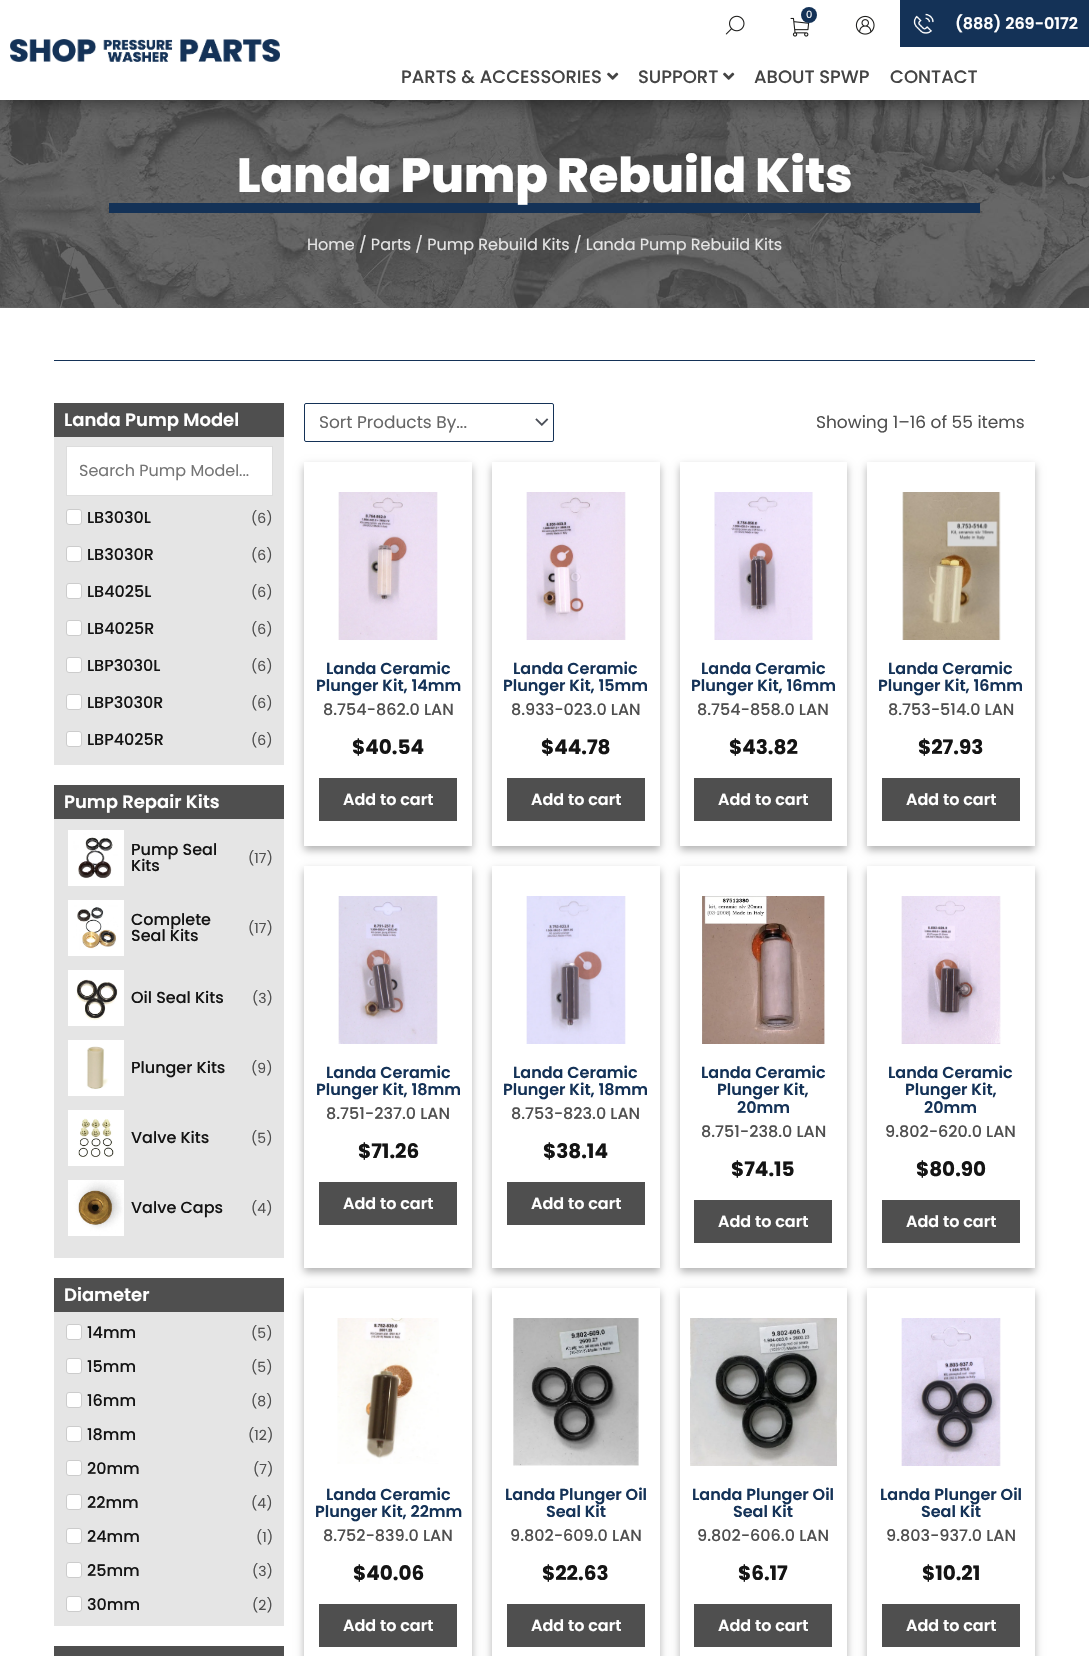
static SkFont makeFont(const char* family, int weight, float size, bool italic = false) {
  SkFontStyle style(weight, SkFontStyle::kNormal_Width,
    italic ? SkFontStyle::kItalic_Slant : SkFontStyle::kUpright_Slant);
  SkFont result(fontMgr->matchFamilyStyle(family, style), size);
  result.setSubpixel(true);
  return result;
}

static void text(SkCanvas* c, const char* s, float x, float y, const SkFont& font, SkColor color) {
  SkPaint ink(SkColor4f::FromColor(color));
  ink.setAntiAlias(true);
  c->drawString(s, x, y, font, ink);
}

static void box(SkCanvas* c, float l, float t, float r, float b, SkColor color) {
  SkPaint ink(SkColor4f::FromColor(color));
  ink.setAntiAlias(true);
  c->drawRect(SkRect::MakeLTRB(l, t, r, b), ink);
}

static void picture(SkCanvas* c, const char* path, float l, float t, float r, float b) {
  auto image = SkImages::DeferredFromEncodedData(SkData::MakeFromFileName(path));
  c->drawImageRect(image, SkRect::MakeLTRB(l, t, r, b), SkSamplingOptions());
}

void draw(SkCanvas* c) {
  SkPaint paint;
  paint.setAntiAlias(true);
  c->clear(0xffffffff);
  picture(c, "img_07.png", 0, 100, 1089, 308);
  c->save();
  c->clipRect(SkRect::MakeLTRB(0, 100, 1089, 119));
  paint.setColor(0xff000000);
  paint.setMaskFilter(SkMaskFilter::MakeBlur(kNormal_SkBlurStyle, 12.5f));
  c->drawRect(SkRect::MakeLTRB(7, 7, 1082, 93), paint);
  paint.setMaskFilter(nullptr);
  c->restore();
  picture(c, "img_01.png", 790, 17, 810, 37);
  paint.setColor(0xff143257);
  c->drawCircle(809, 15, 8, paint);
  SkFont face1 = makeFont("Poppins", 400, 10);
  text(c, "0", 806, 18, face1, 0xffffffff);
  picture(c, "img_02.png", 725, 15, 745, 35);
  picture(c, "img_03.png", 855, 15, 875, 35);
  box(c, 900, 0, 1089, 47, 0xff143257);
  picture(c, "img_04.png", 913, 13, 934, 34);
  SkFont face2 = makeFont("Poppins", 600, 16);
  text(c, "(888) 269-0172", 955, 29, face2, 0xffffffff);
  picture(c, "img_05.png", 10, 39, 280, 62);
  SkFont face3 = makeFont("Poppins", 500, 18);
  text(c, "PARTS & ACCESSORIES", 401, 83, face3, 0xff444444);
  picture(c, "img_06.png", 607, 72, 619, 80);
  text(c, "SUPPORT", 638, 83, face3, 0xff444444);
  picture(c, "img_06.png", 723, 72, 735, 80);
  text(c, "ABOUT SPWP", 754, 83, face3, 0xff444444);
  text(c, "CONTACT", 890, 83, face3, 0xff444444);
  box(c, 109, 203, 980, 213, 0xff143257);
  SkFont face4 = makeFont("Poppins", 800, 48);
  text(c, "Landa Pump Rebuild Kits", 237, 192, face4, 0xffffffff);
  SkFont face5 = makeFont("Poppins", 400, 16);
  text(c, "Home / Parts / Pump Rebuild Kits / Landa Pump Rebuild Kits", 307, 250, face5, 0xffe5e5e5);
  box(c, 54, 360, 1035, 361, 0xff143257);
  box(c, 54, 403, 284, 437, 0xff4f4f4f);
  SkFont face6 = makeFont("Poppins", 600, 18);
  text(c, "Landa Pump Model", 64, 426, face6, 0xffffffff);
  box(c, 54, 437, 284, 765, 0xffe5e5e5);
  paint.setColor(0xffffffff);
  c->drawRect(SkRect::MakeLTRB(66.5f, 446.5f, 272.5f, 495.5f), paint);
  paint.setStyle(SkPaint::kStroke_Style);
  paint.setStrokeWidth(1);
  paint.setColor(0xffdddddd);
  c->drawRect(SkRect::MakeLTRB(66.5f, 446.5f, 272.5f, 495.5f), paint);
  text(c, "Search Pump Model...", 79, 476, face5, 0xff757575);
  paint.setStyle(SkPaint::kFill_Style);
  paint.setColor(0xffffffff);
  c->drawRoundRect(SkRect::MakeLTRB(66.5f, 509.5f, 81.5f, 524.5f), 2.5f, 2.5f, paint);
  paint.setStyle(SkPaint::kStroke_Style);
  paint.setColor(0xffcccccc);
  c->drawRoundRect(SkRect::MakeLTRB(66.5f, 509.5f, 81.5f, 524.5f), 2.5f, 2.5f, paint);
  SkFont face7 = makeFont("Poppins", 500, 16);
  text(c, "LB3030L", 87, 523, face7, 0xff141414);
  SkFont face8 = makeFont("Poppins", 400, 14);
  text(c, "(6)", 251, 523, face8, 0xff4f4f4f);
  paint.setStyle(SkPaint::kFill_Style);
  paint.setColor(0xffffffff);
  c->drawRoundRect(SkRect::MakeLTRB(66.5f, 546.5f, 81.5f, 561.5f), 2.5f, 2.5f, paint);
  paint.setStyle(SkPaint::kStroke_Style);
  paint.setColor(0xffcccccc);
  c->drawRoundRect(SkRect::MakeLTRB(66.5f, 546.5f, 81.5f, 561.5f), 2.5f, 2.5f, paint);
  text(c, "LB3030R", 87, 560, face7, 0xff141414);
  text(c, "(6)", 251, 560, face8, 0xff4f4f4f);
  paint.setStyle(SkPaint::kFill_Style);
  paint.setColor(0xffffffff);
  c->drawRoundRect(SkRect::MakeLTRB(66.5f, 583.5f, 81.5f, 598.5f), 2.5f, 2.5f, paint);
  paint.setStyle(SkPaint::kStroke_Style);
  paint.setColor(0xffcccccc);
  c->drawRoundRect(SkRect::MakeLTRB(66.5f, 583.5f, 81.5f, 598.5f), 2.5f, 2.5f, paint);
  text(c, "LB4025L", 87, 597, face7, 0xff141414);
  text(c, "(6)", 251, 597, face8, 0xff4f4f4f);
  paint.setStyle(SkPaint::kFill_Style);
  paint.setColor(0xffffffff);
  c->drawRoundRect(SkRect::MakeLTRB(66.5f, 620.5f, 81.5f, 635.5f), 2.5f, 2.5f, paint);
  paint.setStyle(SkPaint::kStroke_Style);
  paint.setColor(0xffcccccc);
  c->drawRoundRect(SkRect::MakeLTRB(66.5f, 620.5f, 81.5f, 635.5f), 2.5f, 2.5f, paint);
  text(c, "LB4025R", 87, 634, face7, 0xff141414);
  text(c, "(6)", 251, 634, face8, 0xff4f4f4f);
  paint.setStyle(SkPaint::kFill_Style);
  paint.setColor(0xffffffff);
  c->drawRoundRect(SkRect::MakeLTRB(66.5f, 657.5f, 81.5f, 672.5f), 2.5f, 2.5f, paint);
  paint.setStyle(SkPaint::kStroke_Style);
  paint.setColor(0xffcccccc);
  c->drawRoundRect(SkRect::MakeLTRB(66.5f, 657.5f, 81.5f, 672.5f), 2.5f, 2.5f, paint);
  text(c, "LBP3030L", 87, 671, face7, 0xff141414);
  text(c, "(6)", 251, 671, face8, 0xff4f4f4f);
  paint.setStyle(SkPaint::kFill_Style);
  paint.setColor(0xffffffff);
  c->drawRoundRect(SkRect::MakeLTRB(66.5f, 694.5f, 81.5f, 709.5f), 2.5f, 2.5f, paint);
  paint.setStyle(SkPaint::kStroke_Style);
  paint.setColor(0xffcccccc);
  c->drawRoundRect(SkRect::MakeLTRB(66.5f, 694.5f, 81.5f, 709.5f), 2.5f, 2.5f, paint);
  text(c, "LBP3030R", 87, 708, face7, 0xff141414);
  text(c, "(6)", 251, 708, face8, 0xff4f4f4f);
  paint.setStyle(SkPaint::kFill_Style);
  paint.setColor(0xffffffff);
  c->drawRoundRect(SkRect::MakeLTRB(66.5f, 731.5f, 81.5f, 746.5f), 2.5f, 2.5f, paint);
  paint.setStyle(SkPaint::kStroke_Style);
  paint.setColor(0xffcccccc);
  c->drawRoundRect(SkRect::MakeLTRB(66.5f, 731.5f, 81.5f, 746.5f), 2.5f, 2.5f, paint);
  text(c, "LBP4025R", 87, 745, face7, 0xff141414);
  text(c, "(6)", 251, 745, face8, 0xff4f4f4f);
  box(c, 54, 785, 284, 819, 0xff4f4f4f);
  text(c, "Pump Repair Kits", 64, 808, face6, 0xffffffff);
  box(c, 54, 819, 284, 1258, 0xffe5e5e5);
  picture(c, "img_08.png", 68, 830, 124, 886);
  text(c, "Pump Seal", 131, 855, face7, 0xff141414);
  text(c, "Kits", 131, 871, face7, 0xff141414);
  text(c, "(17)", 248, 863, face8, 0xff4f4f4f);
  picture(c, "img_09.png", 68, 900, 124, 956);
  text(c, "Complete", 131, 925, face7, 0xff141414);
  text(c, "Seal Kits", 131, 941, face7, 0xff141414);
  text(c, "(17)", 248, 933, face8, 0xff4f4f4f);
  picture(c, "img_10.png", 68, 970, 124, 1026);
  text(c, "Oil Seal Kits", 131, 1003, face7, 0xff141414);
  text(c, "(3)", 252, 1003, face8, 0xff4f4f4f);
  picture(c, "img_11.png", 68, 1040, 124, 1096);
  text(c, "Plunger Kits", 131, 1073, face7, 0xff141414);
  text(c, "(9)", 251, 1073, face8, 0xff4f4f4f);
  picture(c, "img_12.png", 68, 1110, 124, 1166);
  text(c, "Valve Kits", 131, 1143, face7, 0xff141414);
  text(c, "(5)", 251, 1143, face8, 0xff4f4f4f);
  picture(c, "img_13.png", 68, 1180, 124, 1236);
  text(c, "Valve Caps", 131, 1213, face7, 0xff141414);
  text(c, "(4)", 251, 1213, face8, 0xff4f4f4f);
  box(c, 54, 1278, 284, 1312, 0xff4f4f4f);
  text(c, "Diameter", 64, 1301, face6, 0xffffffff);
  box(c, 54, 1312, 284, 1626, 0xffe5e5e5);
  paint.setStyle(SkPaint::kFill_Style);
  paint.setColor(0xffffffff);
  c->drawRoundRect(SkRect::MakeLTRB(66.5f, 1324.5f, 81.5f, 1339.5f), 2.5f, 2.5f, paint);
  paint.setStyle(SkPaint::kStroke_Style);
  paint.setColor(0xffcccccc);
  c->drawRoundRect(SkRect::MakeLTRB(66.5f, 1324.5f, 81.5f, 1339.5f), 2.5f, 2.5f, paint);
  text(c, "14mm", 87, 1338, face7, 0xff141414);
  text(c, "(5)", 251, 1338, face8, 0xff4f4f4f);
  paint.setStyle(SkPaint::kFill_Style);
  paint.setColor(0xffffffff);
  c->drawRoundRect(SkRect::MakeLTRB(66.5f, 1358.5f, 81.5f, 1373.5f), 2.5f, 2.5f, paint);
  paint.setStyle(SkPaint::kStroke_Style);
  paint.setColor(0xffcccccc);
  c->drawRoundRect(SkRect::MakeLTRB(66.5f, 1358.5f, 81.5f, 1373.5f), 2.5f, 2.5f, paint);
  text(c, "15mm", 87, 1372, face7, 0xff141414);
  text(c, "(5)", 251, 1372, face8, 0xff4f4f4f);
  paint.setStyle(SkPaint::kFill_Style);
  paint.setColor(0xffffffff);
  c->drawRoundRect(SkRect::MakeLTRB(66.5f, 1392.5f, 81.5f, 1407.5f), 2.5f, 2.5f, paint);
  paint.setStyle(SkPaint::kStroke_Style);
  paint.setColor(0xffcccccc);
  c->drawRoundRect(SkRect::MakeLTRB(66.5f, 1392.5f, 81.5f, 1407.5f), 2.5f, 2.5f, paint);
  text(c, "16mm", 87, 1406, face7, 0xff141414);
  text(c, "(8)", 251, 1406, face8, 0xff4f4f4f);
  paint.setStyle(SkPaint::kFill_Style);
  paint.setColor(0xffffffff);
  c->drawRoundRect(SkRect::MakeLTRB(66.5f, 1426.5f, 81.5f, 1441.5f), 2.5f, 2.5f, paint);
  paint.setStyle(SkPaint::kStroke_Style);
  paint.setColor(0xffcccccc);
  c->drawRoundRect(SkRect::MakeLTRB(66.5f, 1426.5f, 81.5f, 1441.5f), 2.5f, 2.5f, paint);
  text(c, "18mm", 87, 1440, face7, 0xff141414);
  text(c, "(12)", 248, 1440, face8, 0xff4f4f4f);
  paint.setStyle(SkPaint::kFill_Style);
  paint.setColor(0xffffffff);
  c->drawRoundRect(SkRect::MakeLTRB(66.5f, 1460.5f, 81.5f, 1475.5f), 2.5f, 2.5f, paint);
  paint.setStyle(SkPaint::kStroke_Style);
  paint.setColor(0xffcccccc);
  c->drawRoundRect(SkRect::MakeLTRB(66.5f, 1460.5f, 81.5f, 1475.5f), 2.5f, 2.5f, paint);
  text(c, "20mm", 87, 1474, face7, 0xff141414);
  text(c, "(7)", 253, 1474, face8, 0xff4f4f4f);
  paint.setStyle(SkPaint::kFill_Style);
  paint.setColor(0xffffffff);
  c->drawRoundRect(SkRect::MakeLTRB(66.5f, 1494.5f, 81.5f, 1509.5f), 2.5f, 2.5f, paint);
  paint.setStyle(SkPaint::kStroke_Style);
  paint.setColor(0xffcccccc);
  c->drawRoundRect(SkRect::MakeLTRB(66.5f, 1494.5f, 81.5f, 1509.5f), 2.5f, 2.5f, paint);
  text(c, "22mm", 87, 1508, face7, 0xff141414);
  text(c, "(4)", 251, 1508, face8, 0xff4f4f4f);
  paint.setStyle(SkPaint::kFill_Style);
  paint.setColor(0xffffffff);
  c->drawRoundRect(SkRect::MakeLTRB(66.5f, 1528.5f, 81.5f, 1543.5f), 2.5f, 2.5f, paint);
  paint.setStyle(SkPaint::kStroke_Style);
  paint.setColor(0xffcccccc);
  c->drawRoundRect(SkRect::MakeLTRB(66.5f, 1528.5f, 81.5f, 1543.5f), 2.5f, 2.5f, paint);
  text(c, "24mm", 87, 1542, face7, 0xff141414);
  text(c, "(1)", 256, 1542, face8, 0xff4f4f4f);
  paint.setStyle(SkPaint::kFill_Style);
  paint.setColor(0xffffffff);
  c->drawRoundRect(SkRect::MakeLTRB(66.5f, 1562.5f, 81.5f, 1577.5f), 2.5f, 2.5f, paint);
  paint.setStyle(SkPaint::kStroke_Style);
  paint.setColor(0xffcccccc);
  c->drawRoundRect(SkRect::MakeLTRB(66.5f, 1562.5f, 81.5f, 1577.5f), 2.5f, 2.5f, paint);
  text(c, "25mm", 87, 1576, face7, 0xff141414);
  text(c, "(3)", 252, 1576, face8, 0xff4f4f4f);
  paint.setStyle(SkPaint::kFill_Style);
  paint.setColor(0xffffffff);
  c->drawRoundRect(SkRect::MakeLTRB(66.5f, 1596.5f, 81.5f, 1611.5f), 2.5f, 2.5f, paint);
  paint.setStyle(SkPaint::kStroke_Style);
  paint.setColor(0xffcccccc);
  c->drawRoundRect(SkRect::MakeLTRB(66.5f, 1596.5f, 81.5f, 1611.5f), 2.5f, 2.5f, paint);
  text(c, "30mm", 87, 1610, face7, 0xff141414);
  text(c, "(2)", 252, 1610, face8, 0xff4f4f4f);
  box(c, 54, 1646, 284, 1656, 0xff4f4f4f);
  picture(c, "img_14.png", 535, 418, 549, 426);
  paint.setColor(0xff143257);
  c->drawRoundRect(SkRect::MakeLTRB(304.5f, 403.5f, 553.5f, 441.5f), 1.5f, 1.5f, paint);
  SkFont face9 = makeFont("Poppins", 400, 17);
  text(c, "Sort Products By...", 319, 428, face9, 0xff666666);
  text(c, "Showing 1–16 of 55 items", 816, 428, face9, 0xff4f4f4f);
  c->save();
  c->clipPath(SkPathBuilder(SkPathFillType::kEvenOdd).moveTo(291, 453).lineTo(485, 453).lineTo(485, 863).lineTo(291, 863).close().moveTo(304, 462).lineTo(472, 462).lineTo(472, 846).lineTo(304, 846).close().detach(), true);
  paint.setStyle(SkPaint::kFill_Style);
  paint.setColor(0x4d000000);
  paint.setMaskFilter(SkMaskFilter::MakeBlur(kNormal_SkBlurStyle, 4));
  c->drawRect(SkRect::MakeLTRB(304, 466, 472, 850), paint);
  paint.setMaskFilter(nullptr);
  c->restore();
  picture(c, "img_15.png", 338, 492, 438, 640);
  text(c, "Landa Ceramic", 326, 674, face2, 0xff143257);
  text(c, "Plunger Kit, 14mm", 316, 691, face2, 0xff143257);
  text(c, "8.754-862.0 LAN", 323, 715, face7, 0xff4f4f4f);
  SkFont face10 = makeFont("Poppins", 700, 20);
  text(c, "$40.54", 352, 754, face10, 0xff141414);
  box(c, 319, 778, 457, 821, 0xff4f4f4f);
  text(c, "Add to cart", 343, 805, face2, 0xffffffff);
  c->save();
  c->clipPath(SkPathBuilder(SkPathFillType::kEvenOdd).moveTo(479, 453).lineTo(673, 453).lineTo(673, 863).lineTo(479, 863).close().moveTo(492, 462).lineTo(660, 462).lineTo(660, 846).lineTo(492, 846).close().detach(), true);
  paint.setMaskFilter(SkMaskFilter::MakeBlur(kNormal_SkBlurStyle, 4));
  c->drawRect(SkRect::MakeLTRB(492, 466, 660, 850), paint);
  paint.setMaskFilter(nullptr);
  c->restore();
  picture(c, "img_16.png", 526, 492, 626, 640);
  text(c, "Landa Ceramic", 513, 674, face2, 0xff143257);
  text(c, "Plunger Kit, 15mm", 503, 691, face2, 0xff143257);
  text(c, "8.933-023.0 LAN", 511, 715, face7, 0xff4f4f4f);
  text(c, "$44.78", 541, 754, face10, 0xff141414);
  box(c, 507, 778, 645, 821, 0xff4f4f4f);
  text(c, "Add to cart", 531, 805, face2, 0xffffffff);
  c->save();
  c->clipPath(SkPathBuilder(SkPathFillType::kEvenOdd).moveTo(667, 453).lineTo(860, 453).lineTo(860, 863).lineTo(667, 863).close().moveTo(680, 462).lineTo(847, 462).lineTo(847, 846).lineTo(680, 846).close().detach(), true);
  paint.setMaskFilter(SkMaskFilter::MakeBlur(kNormal_SkBlurStyle, 4));
  c->drawRect(SkRect::MakeLTRB(680, 466, 847, 850), paint);
  paint.setMaskFilter(nullptr);
  c->restore();
  picture(c, "img_17.png", 714, 492, 813, 640);
  text(c, "Landa Ceramic", 701, 674, face2, 0xff143257);
  text(c, "Plunger Kit, 16mm", 691, 691, face2, 0xff143257);
  text(c, "8.754-858.0 LAN", 697, 715, face7, 0xff4f4f4f);
  text(c, "$43.82", 729, 754, face10, 0xff141414);
  box(c, 694, 778, 832, 821, 0xff4f4f4f);
  text(c, "Add to cart", 718, 805, face2, 0xffffffff);
  c->save();
  c->clipPath(SkPathBuilder(SkPathFillType::kEvenOdd).moveTo(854, 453).lineTo(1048, 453).lineTo(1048, 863).lineTo(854, 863).close().moveTo(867, 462).lineTo(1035, 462).lineTo(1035, 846).lineTo(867, 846).close().detach(), true);
  paint.setMaskFilter(SkMaskFilter::MakeBlur(kNormal_SkBlurStyle, 4));
  c->drawRect(SkRect::MakeLTRB(867, 466, 1035, 850), paint);
  paint.setMaskFilter(nullptr);
  c->restore();
  picture(c, "img_18.png", 902, 492, 1001, 640);
  text(c, "Landa Ceramic", 888, 674, face2, 0xff143257);
  text(c, "Plunger Kit, 16mm", 878, 691, face2, 0xff143257);
  text(c, "8.753-514.0 LAN", 888, 715, face7, 0xff4f4f4f);
  text(c, "$27.93", 918, 754, face10, 0xff141414);
  box(c, 882, 778, 1020, 821, 0xff4f4f4f);
  text(c, "Add to cart", 906, 805, face2, 0xffffffff);
  c->save();
  c->clipPath(SkPathBuilder(SkPathFillType::kEvenOdd).moveTo(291, 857).lineTo(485, 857).lineTo(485, 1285).lineTo(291, 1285).close().moveTo(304, 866).lineTo(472, 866).lineTo(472, 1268).lineTo(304, 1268).close().detach(), true);
  paint.setMaskFilter(SkMaskFilter::MakeBlur(kNormal_SkBlurStyle, 4));
  c->drawRect(SkRect::MakeLTRB(304, 870, 472, 1272), paint);
  paint.setMaskFilter(nullptr);
  c->restore();
  picture(c, "img_19.png", 338, 896, 438, 1044);
  text(c, "Landa Ceramic", 326, 1078, face2, 0xff143257);
  text(c, "Plunger Kit, 18mm", 316, 1095, face2, 0xff143257);
  text(c, "8.751-237.0 LAN", 326, 1119, face7, 0xff4f4f4f);
  text(c, "$71.26", 358, 1158, face10, 0xff141414);
  box(c, 319, 1182, 457, 1225, 0xff4f4f4f);
  text(c, "Add to cart", 343, 1209, face2, 0xffffffff);
  c->save();
  c->clipPath(SkPathBuilder(SkPathFillType::kEvenOdd).moveTo(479, 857).lineTo(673, 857).lineTo(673, 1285).lineTo(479, 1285).close().moveTo(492, 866).lineTo(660, 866).lineTo(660, 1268).lineTo(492, 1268).close().detach(), true);
  paint.setMaskFilter(SkMaskFilter::MakeBlur(kNormal_SkBlurStyle, 4));
  c->drawRect(SkRect::MakeLTRB(492, 870, 660, 1272), paint);
  paint.setMaskFilter(nullptr);
  c->restore();
  picture(c, "img_20.png", 526, 896, 626, 1044);
  text(c, "Landa Ceramic", 513, 1078, face2, 0xff143257);
  text(c, "Plunger Kit, 18mm", 503, 1095, face2, 0xff143257);
  text(c, "8.753-823.0 LAN", 511, 1119, face7, 0xff4f4f4f);
  text(c, "$38.14", 543, 1158, face10, 0xff141414);
  box(c, 507, 1182, 645, 1225, 0xff4f4f4f);
  text(c, "Add to cart", 531, 1209, face2, 0xffffffff);
  c->save();
  c->clipPath(SkPathBuilder(SkPathFillType::kEvenOdd).moveTo(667, 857).lineTo(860, 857).lineTo(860, 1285).lineTo(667, 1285).close().moveTo(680, 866).lineTo(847, 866).lineTo(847, 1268).lineTo(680, 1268).close().detach(), true);
  paint.setMaskFilter(SkMaskFilter::MakeBlur(kNormal_SkBlurStyle, 4));
  c->drawRect(SkRect::MakeLTRB(680, 870, 847, 1272), paint);
  paint.setMaskFilter(nullptr);
  c->restore();
  picture(c, "img_21.png", 702, 896, 825, 1044);
  text(c, "Landa Ceramic", 701, 1078, face2, 0xff143257);
  text(c, "Plunger Kit,", 717, 1095, face2, 0xff143257);
  text(c, "20mm", 737, 1113, face2, 0xff143257);
  text(c, "8.751-238.0 LAN", 701, 1137, face7, 0xff4f4f4f);
  text(c, "$74.15", 731, 1176, face10, 0xff141414);
  box(c, 694, 1200, 832, 1243, 0xff4f4f4f);
  text(c, "Add to cart", 718, 1227, face2, 0xffffffff);
  c->save();
  c->clipPath(SkPathBuilder(SkPathFillType::kEvenOdd).moveTo(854, 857).lineTo(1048, 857).lineTo(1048, 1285).lineTo(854, 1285).close().moveTo(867, 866).lineTo(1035, 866).lineTo(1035, 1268).lineTo(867, 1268).close().detach(), true);
  paint.setMaskFilter(SkMaskFilter::MakeBlur(kNormal_SkBlurStyle, 4));
  c->drawRect(SkRect::MakeLTRB(867, 870, 1035, 1272), paint);
  paint.setMaskFilter(nullptr);
  c->restore();
  picture(c, "img_22.png", 901, 896, 1001, 1044);
  text(c, "Landa Ceramic", 888, 1078, face2, 0xff143257);
  text(c, "Plunger Kit,", 905, 1095, face2, 0xff143257);
  text(c, "20mm", 924, 1113, face2, 0xff143257);
  text(c, "9.802-620.0 LAN", 885, 1137, face7, 0xff4f4f4f);
  text(c, "$80.90", 916, 1176, face10, 0xff141414);
  box(c, 882, 1200, 1020, 1243, 0xff4f4f4f);
  text(c, "Add to cart", 906, 1227, face2, 0xffffffff);
  c->save();
  c->clipPath(SkPathBuilder(SkPathFillType::kEvenOdd).moveTo(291, 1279).lineTo(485, 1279).lineTo(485, 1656).lineTo(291, 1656).close().moveTo(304, 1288).lineTo(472, 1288).lineTo(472, 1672).lineTo(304, 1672).close().detach(), true);
  paint.setMaskFilter(SkMaskFilter::MakeBlur(kNormal_SkBlurStyle, 4));
  c->drawRect(SkRect::MakeLTRB(304, 1292, 472, 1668), paint);
  paint.setMaskFilter(nullptr);
  c->restore();
  picture(c, "img_23.png", 337, 1318, 439, 1464);
  text(c, "Landa Ceramic", 326, 1500, face2, 0xff143257);
  text(c, "Plunger Kit, 22mm", 315, 1517, face2, 0xff143257);
  text(c, "8.752-839.0 LAN", 323, 1541, face7, 0xff4f4f4f);
  text(c, "$40.06", 353, 1580, face10, 0xff141414);
  box(c, 319, 1604, 457, 1647, 0xff4f4f4f);
  text(c, "Add to cart", 343, 1631, face2, 0xffffffff);
  c->save();
  c->clipPath(SkPathBuilder(SkPathFillType::kEvenOdd).moveTo(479, 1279).lineTo(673, 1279).lineTo(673, 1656).lineTo(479, 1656).close().moveTo(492, 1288).lineTo(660, 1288).lineTo(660, 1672).lineTo(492, 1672).close().detach(), true);
  paint.setMaskFilter(SkMaskFilter::MakeBlur(kNormal_SkBlurStyle, 4));
  c->drawRect(SkRect::MakeLTRB(492, 1292, 660, 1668), paint);
  paint.setMaskFilter(nullptr);
  c->restore();
  picture(c, "img_24.png", 513, 1318, 639, 1466);
  text(c, "Landa Plunger Oil", 505, 1500, face2, 0xff143257);
  text(c, "Seal Kit", 546, 1517, face2, 0xff143257);
  text(c, "9.802-609.0 LAN", 510, 1541, face7, 0xff4f4f4f);
  text(c, "$22.63", 542, 1580, face10, 0xff141414);
  box(c, 507, 1604, 645, 1647, 0xff4f4f4f);
  text(c, "Add to cart", 531, 1631, face2, 0xffffffff);
  c->save();
  c->clipPath(SkPathBuilder(SkPathFillType::kEvenOdd).moveTo(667, 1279).lineTo(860, 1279).lineTo(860, 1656).lineTo(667, 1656).close().moveTo(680, 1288).lineTo(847, 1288).lineTo(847, 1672).lineTo(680, 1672).close().detach(), true);
  paint.setMaskFilter(SkMaskFilter::MakeBlur(kNormal_SkBlurStyle, 4));
  c->drawRect(SkRect::MakeLTRB(680, 1292, 847, 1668), paint);
  paint.setMaskFilter(nullptr);
  c->restore();
  picture(c, "img_25.png", 690, 1318, 837, 1466);
  text(c, "Landa Plunger Oil", 692, 1500, face2, 0xff143257);
  text(c, "Seal Kit", 733, 1517, face2, 0xff143257);
  text(c, "9.802-606.0 LAN", 697, 1541, face7, 0xff4f4f4f);
  text(c, "$6.17", 738, 1580, face10, 0xff141414);
  box(c, 694, 1604, 832, 1647, 0xff4f4f4f);
  text(c, "Add to cart", 718, 1631, face2, 0xffffffff);
  c->save();
  c->clipPath(SkPathBuilder(SkPathFillType::kEvenOdd).moveTo(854, 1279).lineTo(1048, 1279).lineTo(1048, 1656).lineTo(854, 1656).close().moveTo(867, 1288).lineTo(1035, 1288).lineTo(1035, 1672).lineTo(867, 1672).close().detach(), true);
  paint.setMaskFilter(SkMaskFilter::MakeBlur(kNormal_SkBlurStyle, 4));
  c->drawRect(SkRect::MakeLTRB(867, 1292, 1035, 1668), paint);
  paint.setMaskFilter(nullptr);
  c->restore();
  picture(c, "img_26.png", 901, 1318, 1001, 1466);
  text(c, "Landa Plunger Oil", 880, 1500, face2, 0xff143257);
  text(c, "Seal Kit", 921, 1517, face2, 0xff143257);
  text(c, "9.803-937.0 LAN", 886, 1541, face7, 0xff4f4f4f);
  text(c, "$10.21", 922, 1580, face10, 0xff141414);
  box(c, 882, 1604, 1020, 1647, 0xff4f4f4f);
  text(c, "Add to cart", 906, 1631, face2, 0xffffffff);
}
